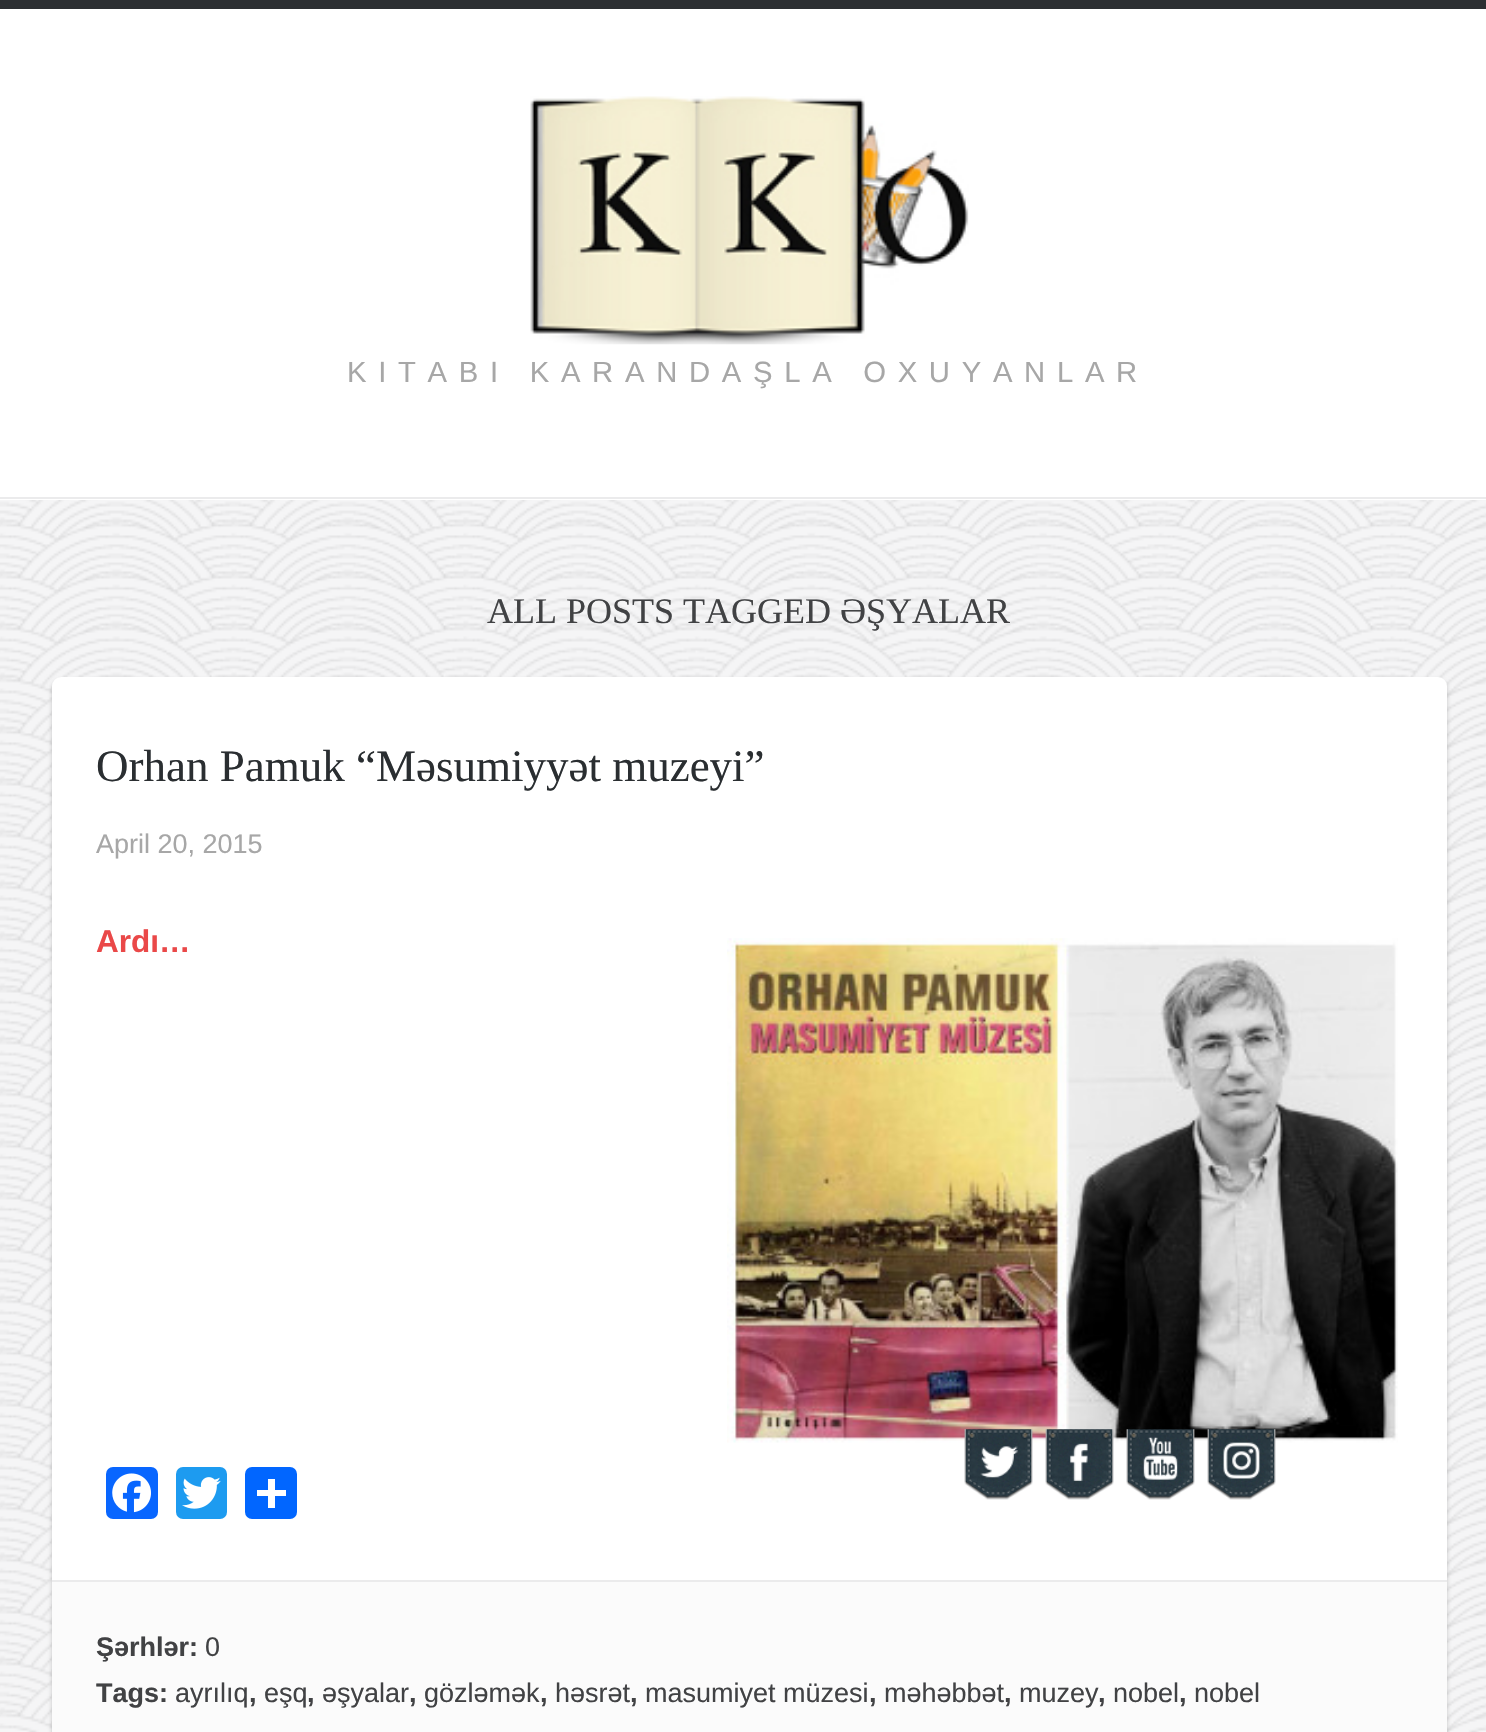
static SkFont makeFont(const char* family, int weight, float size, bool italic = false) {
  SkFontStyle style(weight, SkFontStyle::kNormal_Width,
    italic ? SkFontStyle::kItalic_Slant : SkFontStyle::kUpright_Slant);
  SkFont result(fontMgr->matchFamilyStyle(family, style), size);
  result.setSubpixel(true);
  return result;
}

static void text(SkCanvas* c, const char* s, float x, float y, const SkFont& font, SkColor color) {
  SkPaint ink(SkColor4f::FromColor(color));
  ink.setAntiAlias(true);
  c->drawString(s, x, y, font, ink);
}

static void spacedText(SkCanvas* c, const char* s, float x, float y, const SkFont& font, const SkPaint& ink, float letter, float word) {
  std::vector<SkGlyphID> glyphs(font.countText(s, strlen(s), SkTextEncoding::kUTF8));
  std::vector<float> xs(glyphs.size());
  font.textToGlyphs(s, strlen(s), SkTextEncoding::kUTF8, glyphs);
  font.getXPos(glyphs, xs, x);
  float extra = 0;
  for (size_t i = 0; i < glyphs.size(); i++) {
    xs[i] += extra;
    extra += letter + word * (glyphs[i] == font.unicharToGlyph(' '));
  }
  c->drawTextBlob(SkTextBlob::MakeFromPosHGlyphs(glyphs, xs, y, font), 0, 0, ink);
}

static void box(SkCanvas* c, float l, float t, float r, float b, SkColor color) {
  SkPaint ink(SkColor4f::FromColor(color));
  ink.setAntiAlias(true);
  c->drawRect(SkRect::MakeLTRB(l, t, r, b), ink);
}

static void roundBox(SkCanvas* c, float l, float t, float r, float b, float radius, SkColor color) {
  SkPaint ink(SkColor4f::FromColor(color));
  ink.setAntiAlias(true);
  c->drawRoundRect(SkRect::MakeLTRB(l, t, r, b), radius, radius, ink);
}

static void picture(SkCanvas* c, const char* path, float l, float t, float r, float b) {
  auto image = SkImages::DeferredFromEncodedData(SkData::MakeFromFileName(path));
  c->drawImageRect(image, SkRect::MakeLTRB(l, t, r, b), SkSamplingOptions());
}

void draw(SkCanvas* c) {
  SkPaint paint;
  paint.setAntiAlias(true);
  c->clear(0xffffffff);
  picture(c, "img_01.png", 0, 500, 1486, 1732);
  box(c, 0, 0, 1486, 9, 0xff2c2f32);
  box(c, 0, 497, 1486, 499, 0xffebebec);
  picture(c, "img_02.png", 530, 96, 969, 345);
  SkFont face1 = makeFont("Liberation Sans", 400, 29.25f);
  paint.setColor(0xffa7a7a7);
  spacedText(c, "KITABI KARANDAŞLA OXUYANLAR", 347, 382, face1, paint, 11.7f, 0);
  SkFont face2 = makeFont("Liberation Serif", 400, 36);
  text(c, "ALL POSTS TAGGED ƏŞYALAR", 487, 623, face2, 0xff414244);
  paint.setColor(0x33000000);
  paint.setMaskFilter(SkMaskFilter::MakeBlur(kNormal_SkBlurStyle, 2));
  c->drawRoundRect(SkRect::MakeLTRB(52, 680, 1447, 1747), 9, 9, paint);
  paint.setMaskFilter(nullptr);
  roundBox(c, 52, 677, 1447, 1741, 9, 0xffffffff);
  SkFont face3 = makeFont("Liberation Serif", 400, 45);
  text(c, "Orhan Pamuk “Məsumiyyət muzeyi”", 96, 781, face3, 0xff2a2e31);
  SkFont face4 = makeFont("Liberation Sans", 400, 27);
  text(c, "April 20, 2015", 96, 853, face4, 0xffa7a7a7);
  SkFont face5 = makeFont("Liberation Sans", 700, 31.5f);
  text(c, "Ardı…", 96, 952, face5, 0xffea4848);
  picture(c, "img_03.png", 727, 938, 1398, 1443);
  roundBox(c, 106, 1467, 158, 1519, 7, 0xff0866ff);
  picture(c, "img_04.png", 112, 1473, 151, 1513);
  roundBox(c, 176, 1467, 227, 1519, 7, 0xff1d9bf0);
  picture(c, "img_05.png", 182, 1477, 221, 1509);
  roundBox(c, 245, 1467, 297, 1519, 7, 0xff0166ff);
  box(c, 268, 1479, 275, 1508, 0xffffffff);
  box(c, 257, 1490, 286, 1496, 0xffffffff);
  box(c, 52, 1582, 1447, 1732, 0xfffbfbfb);
  box(c, 52, 1580, 1447, 1582, 0xffebebec);
  SkFont face6 = makeFont("Liberation Sans", 700, 27);
  text(c, "Şərhlər:", 96, 1656, face6, 0xff414244);
  text(c, "0", 205, 1656, face4, 0xff414244);
  text(c, "Tags:", 96, 1702, face6, 0xff414244);
  text(c, "ayrılıq", 175, 1702, face4, 0xff414244);
  text(c, ",", 249, 1702, face6, 0xff414244);
  text(c, "eşq", 264, 1702, face4, 0xff414244);
  text(c, ",", 307, 1702, face6, 0xff414244);
  text(c, "əşyalar", 322, 1702, face4, 0xff414244);
  text(c, ",", 409, 1702, face6, 0xff414244);
  text(c, "gözləmək", 424, 1702, face4, 0xff414244);
  text(c, ",", 540, 1702, face6, 0xff414244);
  text(c, "həsrət", 555, 1702, face4, 0xff414244);
  text(c, ",", 630, 1702, face6, 0xff414244);
  text(c, "masumiyet müzesi", 645, 1702, face4, 0xff414244);
  text(c, ",", 869, 1702, face6, 0xff414244);
  text(c, "məhəbbət", 884, 1702, face4, 0xff414244);
  text(c, ",", 1004, 1702, face6, 0xff414244);
  text(c, "muzey", 1019, 1702, face4, 0xff414244);
  text(c, ",", 1098, 1702, face6, 0xff414244);
  text(c, "nobel", 1113, 1702, face4, 0xff414244);
  text(c, ",", 1179, 1702, face6, 0xff414244);
  text(c, "nobel", 1194, 1702, face4, 0xff414244);
  picture(c, "img_06.png", 964, 1429, 1033, 1500);
  picture(c, "img_07.png", 1045, 1429, 1114, 1500);
  picture(c, "img_08.png", 1126, 1429, 1195, 1500);
  picture(c, "img_09.png", 1207, 1429, 1276, 1500);
}
